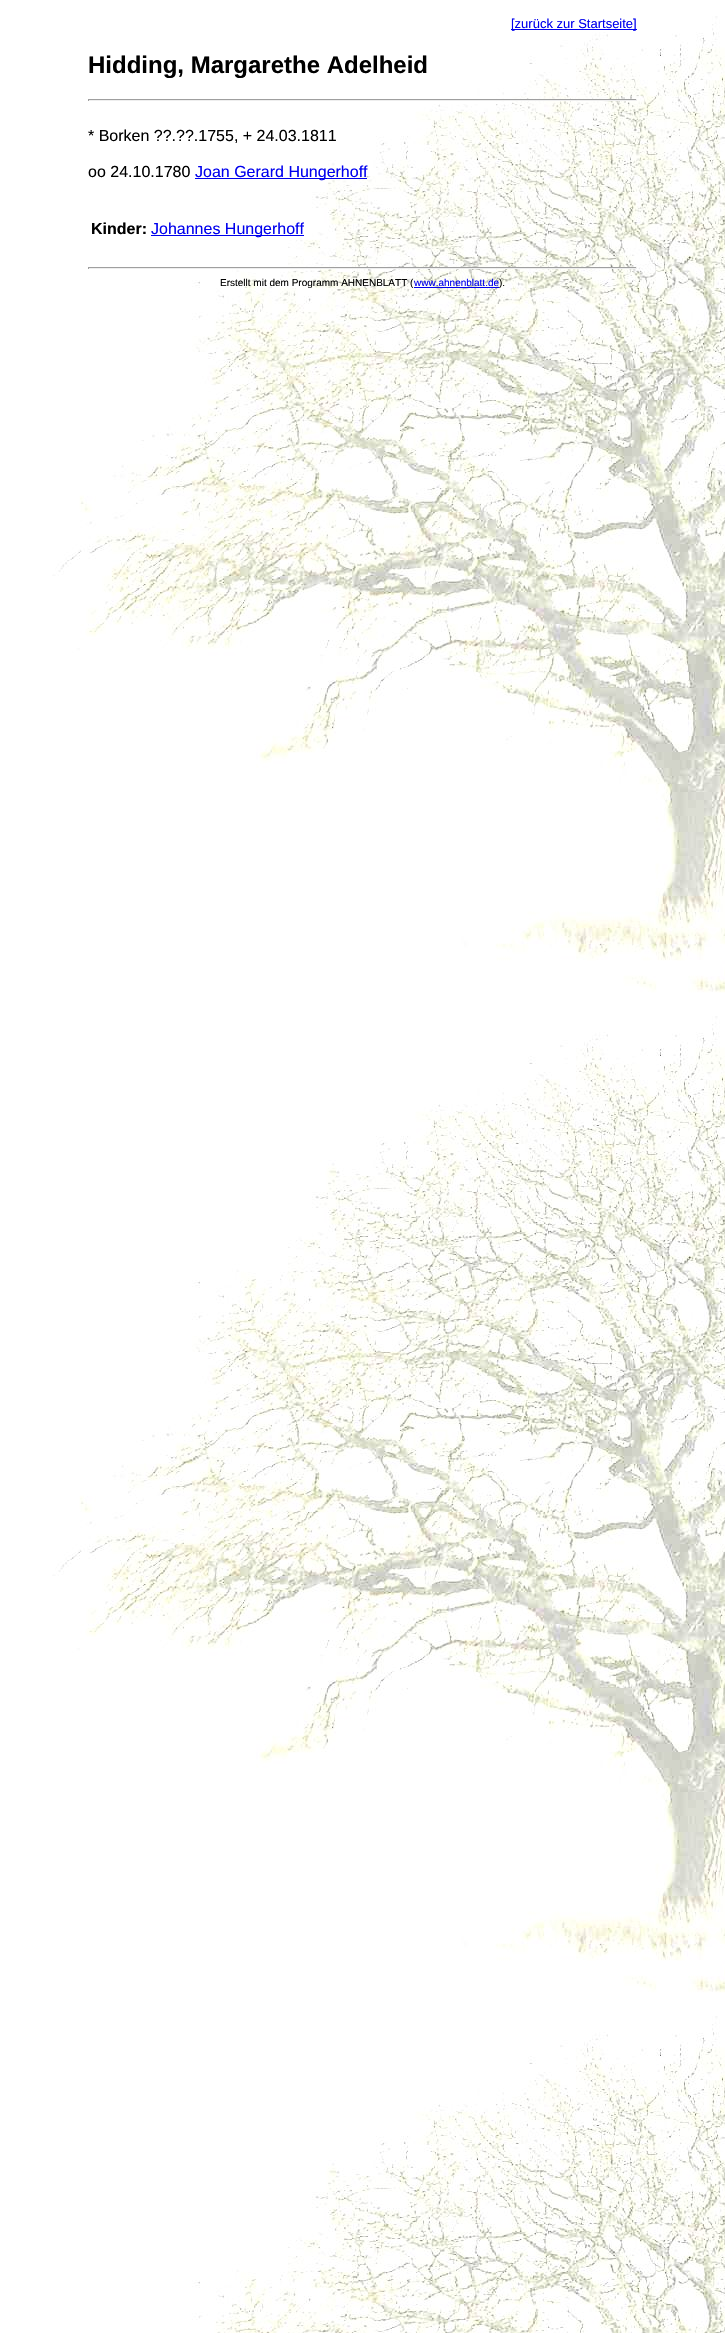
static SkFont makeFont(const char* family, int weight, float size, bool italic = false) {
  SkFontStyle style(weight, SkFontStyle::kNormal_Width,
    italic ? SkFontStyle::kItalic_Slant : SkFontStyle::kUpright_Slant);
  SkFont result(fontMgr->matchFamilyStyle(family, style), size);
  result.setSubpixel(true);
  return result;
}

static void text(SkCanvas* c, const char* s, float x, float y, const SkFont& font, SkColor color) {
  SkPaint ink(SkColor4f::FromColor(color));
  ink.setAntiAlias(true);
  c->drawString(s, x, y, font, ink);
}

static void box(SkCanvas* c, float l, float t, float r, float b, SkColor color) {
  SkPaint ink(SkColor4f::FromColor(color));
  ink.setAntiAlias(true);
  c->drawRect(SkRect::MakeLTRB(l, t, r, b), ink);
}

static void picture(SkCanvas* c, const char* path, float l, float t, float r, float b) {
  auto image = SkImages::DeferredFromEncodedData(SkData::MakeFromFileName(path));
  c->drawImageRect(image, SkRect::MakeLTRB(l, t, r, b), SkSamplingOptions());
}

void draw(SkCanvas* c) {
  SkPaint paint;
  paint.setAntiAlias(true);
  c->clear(0xffffffff);
  picture(c, "img_01.png", 52, 16, 725, 2333);
  box(c, 511, 29, 637, 30, 0xff0000ee);
  SkFont face1 = makeFont("Liberation Sans", 400, 13);
  text(c, "[zurück zur Startseite]", 511, 28, face1, 0xff0000ee);
  SkFont face2 = makeFont("Liberation Sans", 700, 24);
  text(c, "Hidding, Margarethe Adelheid", 88, 73, face2, 0xff000000);
  box(c, 88, 99, 637, 100, 0xff9f9f9f);
  box(c, 636, 99, 637, 101, 0xffeeeeee);
  box(c, 88, 100, 637, 101, 0xffeeeeee);
  box(c, 88, 99, 89, 101, 0xff9f9f9f);
  SkFont face3 = makeFont("Liberation Sans", 400, 16);
  text(c, "* Borken ?\077.?\077.1755, + 24.03.1811", 88, 141, face3, 0xff000000);
  text(c, "oo 24.10.1780", 88, 177, face3, 0xff000000);
  box(c, 195, 178, 367, 179, 0xff0000ee);
  text(c, "Joan Gerard Hungerhoff", 195, 177, face3, 0xff0000ee);
  SkFont face4 = makeFont("Liberation Sans", 700, 16);
  text(c, "Kinder:", 91, 234, face4, 0xff000000);
  box(c, 151, 235, 304, 236, 0xff0000ee);
  text(c, "Johannes Hungerhoff", 151, 234, face3, 0xff0000ee);
  box(c, 88, 267, 637, 268, 0xff9f9f9f);
  box(c, 636, 267, 637, 269, 0xffeeeeee);
  box(c, 88, 268, 637, 269, 0xffeeeeee);
  box(c, 88, 267, 89, 269, 0xff9f9f9f);
  SkFont face5 = makeFont("Liberation Sans", 400, 10);
  text(c, "Erstellt mit dem Programm AHNENBLATT (", 220, 286, face5, 0xff000000);
  box(c, 414, 287, 499, 288, 0xff0000ee);
  text(c, "www.ahnenblatt.de", 414, 286, face5, 0xff0000ee);
  text(c, ").", 499, 286, face5, 0xff000000);
}
